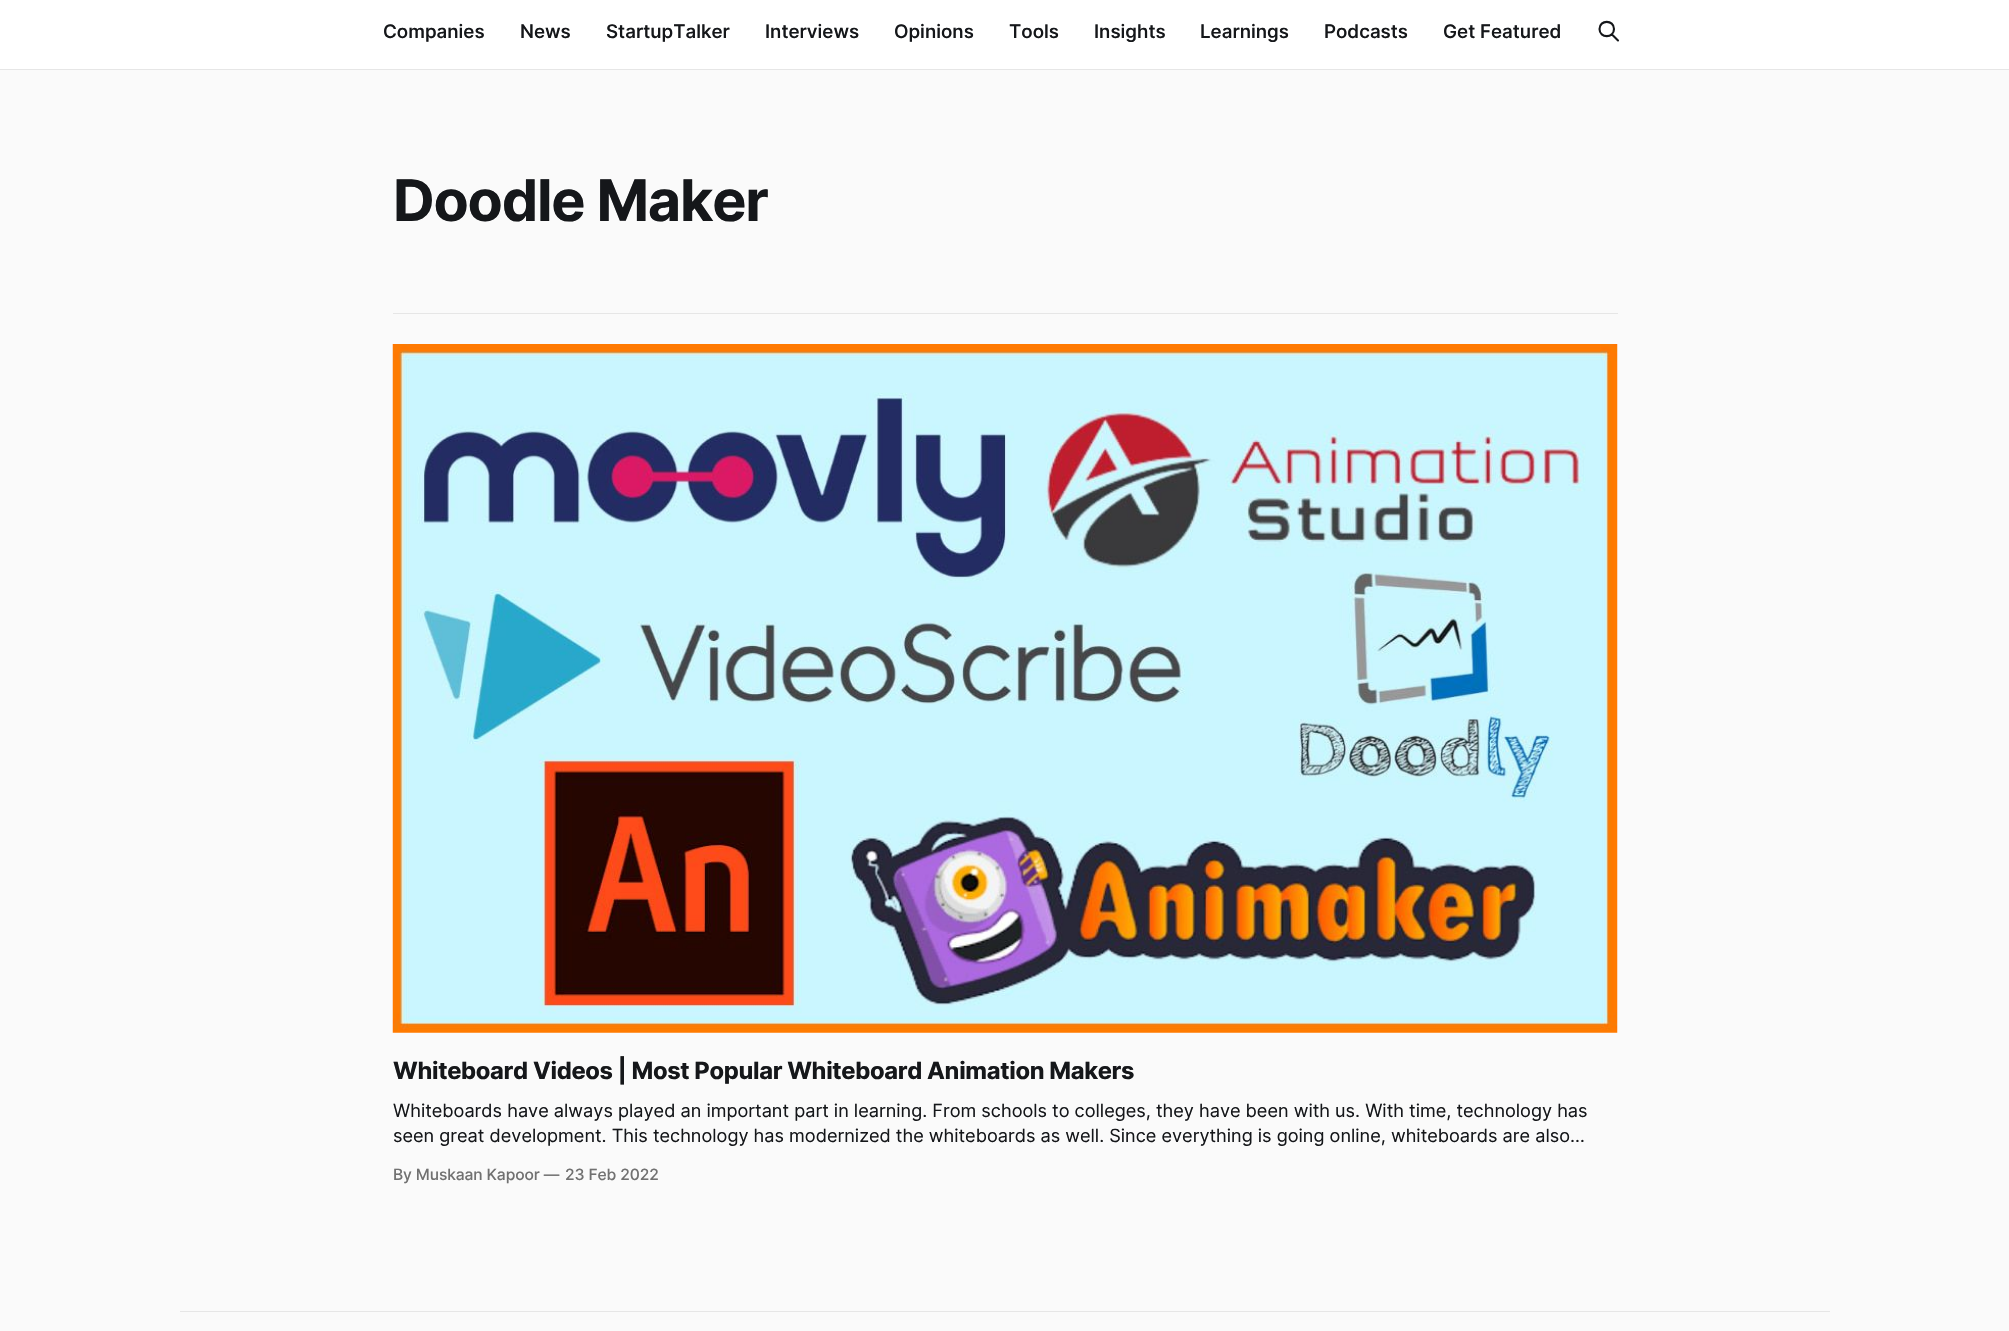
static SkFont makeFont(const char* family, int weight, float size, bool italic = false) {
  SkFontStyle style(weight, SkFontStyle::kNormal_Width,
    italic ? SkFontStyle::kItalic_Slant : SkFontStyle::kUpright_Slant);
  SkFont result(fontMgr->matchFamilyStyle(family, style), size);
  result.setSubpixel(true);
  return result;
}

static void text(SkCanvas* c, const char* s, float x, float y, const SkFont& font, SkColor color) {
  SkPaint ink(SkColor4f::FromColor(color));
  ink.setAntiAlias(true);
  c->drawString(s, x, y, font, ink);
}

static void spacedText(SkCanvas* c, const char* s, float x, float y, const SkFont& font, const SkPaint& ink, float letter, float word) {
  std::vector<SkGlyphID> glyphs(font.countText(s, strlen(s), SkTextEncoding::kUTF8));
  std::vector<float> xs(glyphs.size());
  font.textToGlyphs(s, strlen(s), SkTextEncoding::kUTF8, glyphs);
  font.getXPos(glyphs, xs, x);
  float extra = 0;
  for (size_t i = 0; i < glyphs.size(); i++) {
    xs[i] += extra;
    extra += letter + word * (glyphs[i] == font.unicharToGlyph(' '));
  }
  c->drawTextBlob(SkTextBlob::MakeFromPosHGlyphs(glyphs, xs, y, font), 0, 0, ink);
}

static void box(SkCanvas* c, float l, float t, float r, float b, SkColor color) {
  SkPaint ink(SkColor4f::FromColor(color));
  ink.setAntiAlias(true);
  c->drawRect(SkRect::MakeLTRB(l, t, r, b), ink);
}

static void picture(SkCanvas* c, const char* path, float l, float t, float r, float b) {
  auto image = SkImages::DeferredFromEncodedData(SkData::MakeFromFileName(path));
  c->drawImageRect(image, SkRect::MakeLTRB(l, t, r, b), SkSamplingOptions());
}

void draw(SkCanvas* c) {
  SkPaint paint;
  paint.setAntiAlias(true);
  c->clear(0xfffafafa);
  box(c, 0, 0, 2009, 69, 0xffffffff);
  SkFont face1 = makeFont("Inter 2", 500, 18.75f);
  text(c, "Companies", 383, 38, face1, 0xff15171a);
  text(c, "News", 520, 38, face1, 0xff15171a);
  text(c, "StartupTalker", 606, 38, face1, 0xff15171a);
  text(c, "Interviews", 765, 38, face1, 0xff15171a);
  text(c, "Opinions", 894, 38, face1, 0xff15171a);
  text(c, "Tools", 1009, 38, face1, 0xff15171a);
  text(c, "Insights", 1094, 38, face1, 0xff15171a);
  text(c, "Learnings", 1200, 38, face1, 0xff15171a);
  text(c, "Podcasts", 1324, 38, face1, 0xff15171a);
  text(c, "Get Featured", 1443, 38, face1, 0xff15171a);
  paint.setStyle(SkPaint::kStroke_Style);
  paint.setStrokeWidth(2.1f);
  paint.setStrokeCap(SkPaint::kRound_Cap);
  paint.setStrokeJoin(SkPaint::kRound_Join);
  paint.setColor(0xff15171a);
  c->drawPath(SkPathBuilder().moveTo(1618, 40.5f).lineTo(1612, 34.5f).moveTo(1614, 29).cubicTo(1614, 38.5f, 1599.5f, 38.5f, 1599.5f, 29).cubicTo(1599.5f, 19.5f, 1614, 19.5f, 1614, 29).close().detach(), paint);
  box(c, 0, 69, 2009, 70, 0xffe6e6e6);
  box(c, 393, 313, 1618, 314, 0xffe6e6e6);
  SkFont face2 = makeFont("Inter", 700, 57.5f);
  paint.setStyle(SkPaint::kFill_Style);
  spacedText(c, "Doodle Maker", 393, 221, face2, paint, -1.25f, 0);
  picture(c, "img_01.png", 392, 344, 1618, 1033);
  SkFont face3 = makeFont("Inter 2", 700, 23.75f);
  spacedText(c, "Whiteboard Videos | Most Popular Whiteboard Animation Makers", 393, 1079, face3, paint, -0.33f, 0);
  SkFont face4 = makeFont("Inter", 400, 18.12f);
  text(c, "Whiteboards have always played an important part in learning. From schools to colleges, they have been with us. With time, technology has", 393, 1117, face4, 0xff15171a);
  text(c, "seen great development. This technology has modernized the whiteboards as well. Since everything is going online, whiteboards are also…", 393, 1142, face4, 0xff15171a);
  SkFont face5 = makeFont("Inter", 500, 15.6f);
  paint.setColor(0xff717171);
  spacedText(c, "By Muskaan Kapoor —", 393, 1180, face5, paint, -0.1f, 0);
  spacedText(c, "23 Feb 2022", 565, 1180, face5, paint, -0.1f, 0);
  box(c, 180, 1311, 1830, 1312, 0xffe6e6e6);
}
